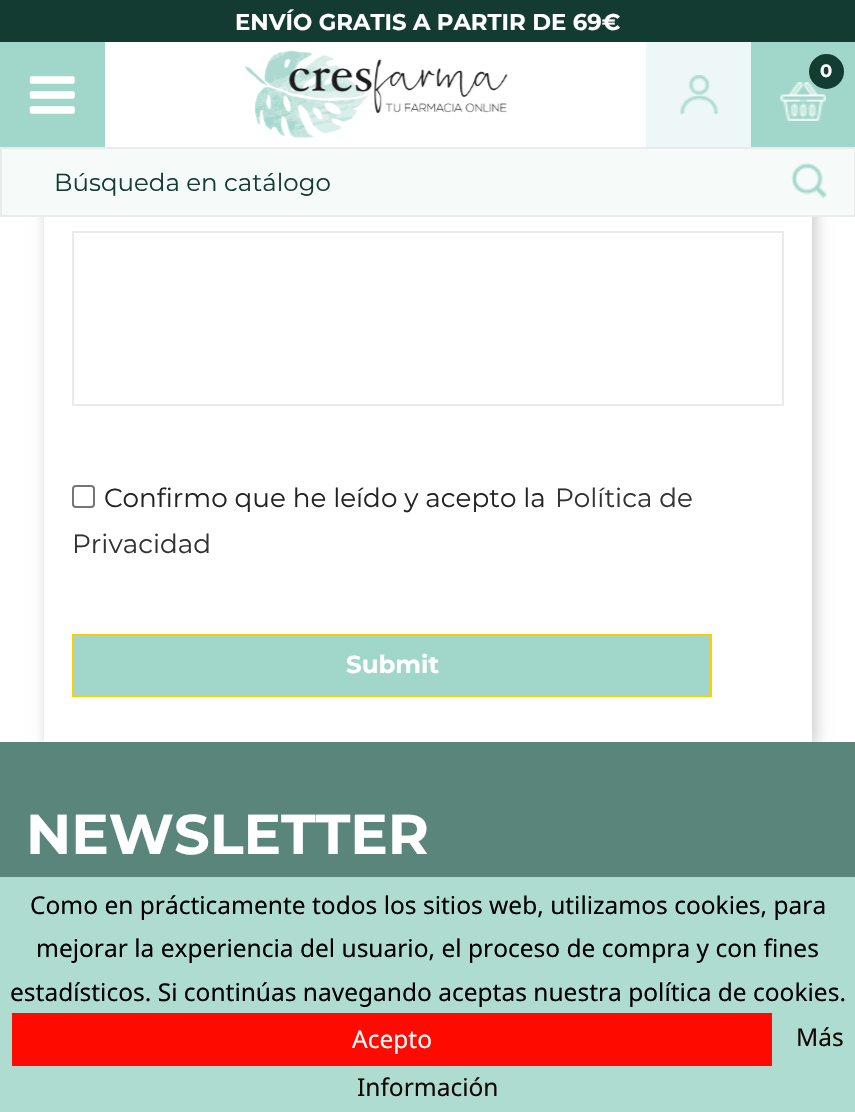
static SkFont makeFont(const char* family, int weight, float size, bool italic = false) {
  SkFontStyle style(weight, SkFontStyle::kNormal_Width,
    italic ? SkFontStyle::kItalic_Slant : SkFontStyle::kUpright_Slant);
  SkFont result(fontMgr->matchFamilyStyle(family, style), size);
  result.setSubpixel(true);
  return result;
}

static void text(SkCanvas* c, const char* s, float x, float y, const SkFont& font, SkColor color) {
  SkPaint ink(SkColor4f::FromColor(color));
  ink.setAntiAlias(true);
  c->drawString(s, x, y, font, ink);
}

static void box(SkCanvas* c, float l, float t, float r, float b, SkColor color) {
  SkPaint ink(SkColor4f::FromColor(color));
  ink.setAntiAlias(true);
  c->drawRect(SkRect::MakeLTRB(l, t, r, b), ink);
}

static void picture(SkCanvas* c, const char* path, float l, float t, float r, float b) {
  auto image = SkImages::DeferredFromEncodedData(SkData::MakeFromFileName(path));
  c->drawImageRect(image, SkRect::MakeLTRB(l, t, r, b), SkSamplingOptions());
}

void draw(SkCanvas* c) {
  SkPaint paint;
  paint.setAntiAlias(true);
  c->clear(0xffffffff);
  c->save();
  c->clipPath(SkPathBuilder(SkPathFillType::kEvenOdd).moveTo(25, 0).lineTo(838, 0).lineTo(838, 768).lineTo(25, 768).close().moveTo(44, -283).lineTo(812, -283).lineTo(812, 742).lineTo(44, 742).close().detach(), true);
  paint.setColor(0x33000000);
  paint.setMaskFilter(SkMaskFilter::MakeBlur(kNormal_SkBlurStyle, 7));
  c->drawRect(SkRect::MakeLTRB(47, -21, 816, 746), paint);
  paint.setMaskFilter(nullptr);
  c->restore();
  box(c, 0, 0, 855, 42, 0xff143b31);
  SkFont face1 = makeFont("Montserrat", 700, 22.75f);
  text(c, "ENVÍO GRATIS A PARTIR DE 69€", 235, 30, face1, 0xffffffff);
  box(c, 0, 42, 105, 147, 0xffa1d7ca);
  picture(c, "img_01.png", 29, 76, 75, 114);
  picture(c, "img_02.png", 244, 50, 508, 138);
  box(c, 646, 42, 751, 147, 0xffeef7f7);
  picture(c, "img_03.png", 680, 75, 719, 114);
  box(c, 751, 42, 855, 147, 0xffa1d7ca);
  picture(c, "img_04.png", 780, 82, 826, 121);
  paint.setColor(0xff133c33);
  c->drawCircle(826.5f, 71.5f, 16.5f, paint);
  paint.setStyle(SkPaint::kStroke_Style);
  paint.setStrokeWidth(2);
  c->drawCircle(826.5f, 71.5f, 16.5f, paint);
  SkFont face2 = makeFont("Montserrat", 700, 18);
  text(c, "0", 820, 77, face2, 0xffffffff);
  paint.setStyle(SkPaint::kFill_Style);
  paint.setColor(0xfff6fbf9);
  c->drawRect(SkRect::MakeLTRB(1, 148, 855, 216), paint);
  paint.setStyle(SkPaint::kStroke_Style);
  paint.setColor(0xffebebeb);
  c->drawRect(SkRect::MakeLTRB(1, 148, 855, 216), paint);
  SkFont face3 = makeFont("Montserrat", 400, 24.5f);
  text(c, "Búsqueda en catálogo", 54, 191, face3, 0xff133c33);
  picture(c, "img_05.png", 791, 162, 827, 198);
  c->drawRect(SkRect::MakeLTRB(73, 232, 783, 405), paint);
  paint.setColor(0xff767676);
  c->drawRoundRect(SkRect::MakeLTRB(73, 486, 94, 507), 3, 3, paint);
  SkFont face4 = makeFont("Montserrat", 400, 26.25f);
  text(c, "Confirmo que he leído y acepto la", 104, 507, face4, 0xff232323);
  text(c, "Política de", 555, 507, face4, 0xff333333);
  text(c, "Privacidad", 72, 553, face4, 0xff333333);
  paint.setStyle(SkPaint::kFill_Style);
  paint.setColor(0xffa1d7ca);
  c->drawRect(SkRect::MakeLTRB(73, 635, 711, 696), paint);
  paint.setStyle(SkPaint::kStroke_Style);
  paint.setColor(0xffffcc00);
  c->drawRect(SkRect::MakeLTRB(73, 635, 711, 696), paint);
  SkFont face5 = makeFont("Montserrat", 700, 24.5f);
  text(c, "Submit", 346, 673, face5, 0xffffffff);
  box(c, 0, 742, 855, 877, 0xff5a857a);
  SkFont face6 = makeFont("Montserrat", 700, 56);
  text(c, "NEWSLETTER", 26, 854, face6, 0xffffffff);
  box(c, 0, 877, 855, 1112, 0xffaedcd1);
  SkFont face7 = makeFont("Noto Sans", 400, 24.5f);
  text(c, "Como en prácticamente todos los sitios web, utilizamos cookies, para", 30, 914, face7, 0xff000000);
  text(c, "mejorar la experiencia del usuario, el proceso de compra y con fines", 36, 957, face7, 0xff000000);
  text(c, "estadísticos. Si continúas navegando aceptas nuestra política de cookies.", 10, 1001, face7, 0xff000000);
  box(c, 12, 1013, 772, 1066, 0xffff0a00);
  text(c, "Acepto", 352, 1048, face7, 0xffffffff);
  text(c, "Más", 796, 1046, face7, 0xff140805);
  text(c, "Información", 357, 1096, face7, 0xff140805);
}
